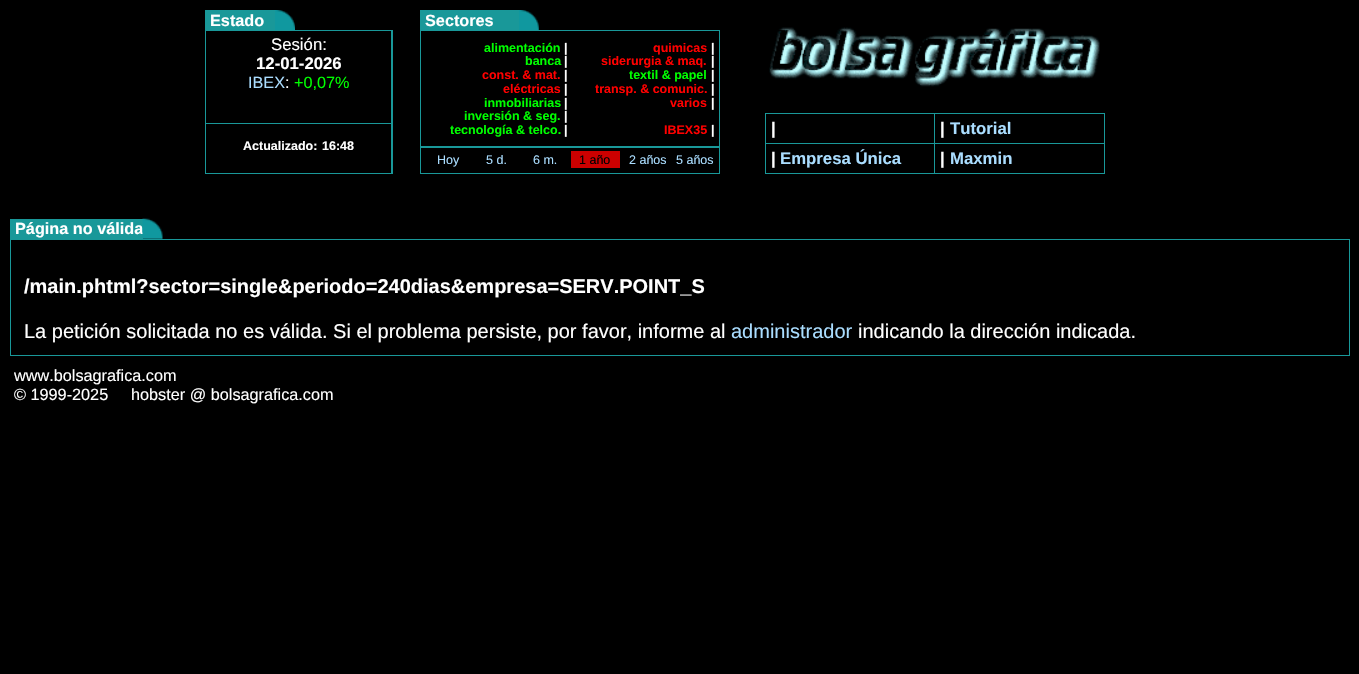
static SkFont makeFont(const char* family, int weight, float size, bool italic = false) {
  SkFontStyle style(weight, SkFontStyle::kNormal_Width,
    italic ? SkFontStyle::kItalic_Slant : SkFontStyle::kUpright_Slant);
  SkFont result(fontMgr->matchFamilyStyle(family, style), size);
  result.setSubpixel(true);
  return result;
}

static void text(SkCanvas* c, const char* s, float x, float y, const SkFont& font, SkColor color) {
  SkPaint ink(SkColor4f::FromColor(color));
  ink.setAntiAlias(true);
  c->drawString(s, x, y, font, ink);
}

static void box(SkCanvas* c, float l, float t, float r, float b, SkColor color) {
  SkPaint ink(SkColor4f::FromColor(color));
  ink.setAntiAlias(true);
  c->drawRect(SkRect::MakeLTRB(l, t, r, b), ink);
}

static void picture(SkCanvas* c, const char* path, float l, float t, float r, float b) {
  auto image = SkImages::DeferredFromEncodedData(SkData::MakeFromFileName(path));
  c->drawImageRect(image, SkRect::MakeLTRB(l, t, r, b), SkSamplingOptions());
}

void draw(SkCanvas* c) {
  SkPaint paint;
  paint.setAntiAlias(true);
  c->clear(0xff000000);
  box(c, 205, 10, 275, 30, 0xff199899);
  SkFont face1 = makeFont("Liberation Sans", 700, 16.25f);
  text(c, "Estado", 210, 26, face1, 0xffffffff);
  picture(c, "img_01.png", 275, 10, 295, 30);
  box(c, 205, 30, 393, 174, 0xff199899);
  box(c, 206, 31, 391, 123, 0xff000000);
  SkFont face2 = makeFont("Liberation Sans", 400, 16.75f);
  text(c, "Sesión:", 271, 50, face2, 0xffffffff);
  SkFont face3 = makeFont("Liberation Sans", 700, 16.75f);
  text(c, "12-01-2026", 256, 69, face3, 0xffffffff);
  SkFont face4 = makeFont("Liberation Sans", 400, 16.25f);
  text(c, "IBEX", 248, 88, face4, 0xffaaddff);
  text(c, ":", 285, 88, face4, 0xffffffff);
  text(c, "+0,07%", 294, 88, face4, 0xff00ff00);
  box(c, 206, 124, 391, 173, 0xff000000);
  SkFont face5 = makeFont("Liberation Sans", 700, 12.5f);
  text(c, "Actualizado:", 243, 150, face5, 0xffffffff);
  text(c, "16:48", 322, 150, face5, 0xffffffff);
  box(c, 420, 10, 519, 30, 0xff199899);
  text(c, "Sectores", 425, 26, face1, 0xffffffff);
  picture(c, "img_02.png", 519, 10, 539, 30);
  box(c, 420, 30, 720, 174, 0xff199899);
  box(c, 421, 31, 719, 146, 0xff000000);
  text(c, "alimentación", 484, 52, face5, 0xff00ff00);
  text(c, "|", 564, 52, face5, 0xffffffff);
  text(c, "banca", 525, 65, face5, 0xff00ff00);
  text(c, "|", 564, 65, face5, 0xffffffff);
  text(c, "const. & mat.", 482, 79, face5, 0xffff0000);
  text(c, "|", 564, 79, face5, 0xffffffff);
  text(c, "eléctricas", 503, 93, face5, 0xffff0000);
  text(c, "|", 564, 93, face5, 0xffffffff);
  text(c, "inmobiliarias", 484, 107, face5, 0xff00ff00);
  text(c, "|", 564, 107, face5, 0xffffffff);
  text(c, "inversión & seg.", 464, 120, face5, 0xff00ff00);
  text(c, "|", 564, 120, face5, 0xffffffff);
  text(c, "tecnología & telco.", 450, 134, face5, 0xff00ff00);
  text(c, "|", 564, 134, face5, 0xffffffff);
  text(c, "quimicas", 653, 52, face5, 0xffff0000);
  text(c, "|", 711, 52, face5, 0xffffffff);
  text(c, "siderurgia & maq.", 601, 65, face5, 0xffff0000);
  text(c, "|", 711, 65, face5, 0xffffffff);
  text(c, "textil & papel", 629, 79, face5, 0xff00ff00);
  text(c, "|", 711, 79, face5, 0xffffffff);
  text(c, "transp. & comunic.", 595, 93, face5, 0xffff0000);
  text(c, "|", 711, 93, face5, 0xffffffff);
  text(c, "varios", 670, 107, face5, 0xffff0000);
  text(c, "|", 711, 107, face5, 0xffffffff);
  text(c, "IBEX35", 664, 134, face5, 0xffff0000);
  text(c, "|", 711, 134, face5, 0xffffffff);
  box(c, 421, 148, 719, 173, 0xff000000);
  SkFont face6 = makeFont("Liberation Sans", 400, 12.5f);
  text(c, "Hoy", 437, 164, face6, 0xffaaddff);
  text(c, "5 d.", 486, 164, face6, 0xffaaddff);
  text(c, "6 m.", 533, 164, face6, 0xffaaddff);
  box(c, 571, 151, 620, 168, 0xffcc0000);
  text(c, "1 año", 579, 164, face6, 0xff000000);
  text(c, "2 años", 629, 164, face6, 0xffaaddff);
  text(c, "5 años", 676, 164, face6, 0xffaaddff);
  picture(c, "img_03.png", 769, 27, 1100, 87);
  box(c, 765, 113, 1105, 174, 0xff199899);
  box(c, 766, 114, 934, 143, 0xff000000);
  text(c, "|", 771, 134, face3, 0xffffffff);
  box(c, 935, 114, 1104, 143, 0xff000000);
  text(c, "|", 940, 134, face3, 0xffffffff);
  text(c, "Tutorial", 950, 134, face3, 0xffaaddff);
  box(c, 766, 144, 934, 173, 0xff000000);
  text(c, "|", 771, 164, face3, 0xffffffff);
  text(c, "Empresa Única", 780, 164, face3, 0xffaaddff);
  box(c, 935, 144, 1104, 173, 0xff000000);
  text(c, "|", 940, 164, face3, 0xffffffff);
  text(c, "Maxmin", 950, 164, face3, 0xffaaddff);
  box(c, 10, 219, 143, 239, 0xff199899);
  text(c, "Página no válida", 15, 234, face1, 0xffffffff);
  picture(c, "img_04.png", 142, 218, 163, 239);
  box(c, 10, 239, 1350, 356, 0xff199899);
  box(c, 11, 240, 1349, 355, 0xff000000);
  SkFont face7 = makeFont("Liberation Sans", 700, 20);
  text(c, "/main.phtml?sector=single&periodo=240dias&empresa=SERV.POINT_S", 24, 293, face7, 0xffffffff);
  SkFont face8 = makeFont("Liberation Sans", 400, 20);
  text(c, "La petición solicitada no es válida. Si el problema persiste, por favor, informe al", 24, 338, face8, 0xffffffff);
  text(c, "administrador", 731, 338, face8, 0xffaaddff);
  text(c, "indicando la dirección indicada.", 858, 338, face8, 0xffffffff);
  text(c, "www.bolsagrafica.com", 14, 381, face4, 0xffffffff);
  text(c, "© 1999-2025", 14, 400, face4, 0xffffffff);
  text(c, "hobster @ bolsagrafica.com", 131, 400, face4, 0xffffffff);
}
